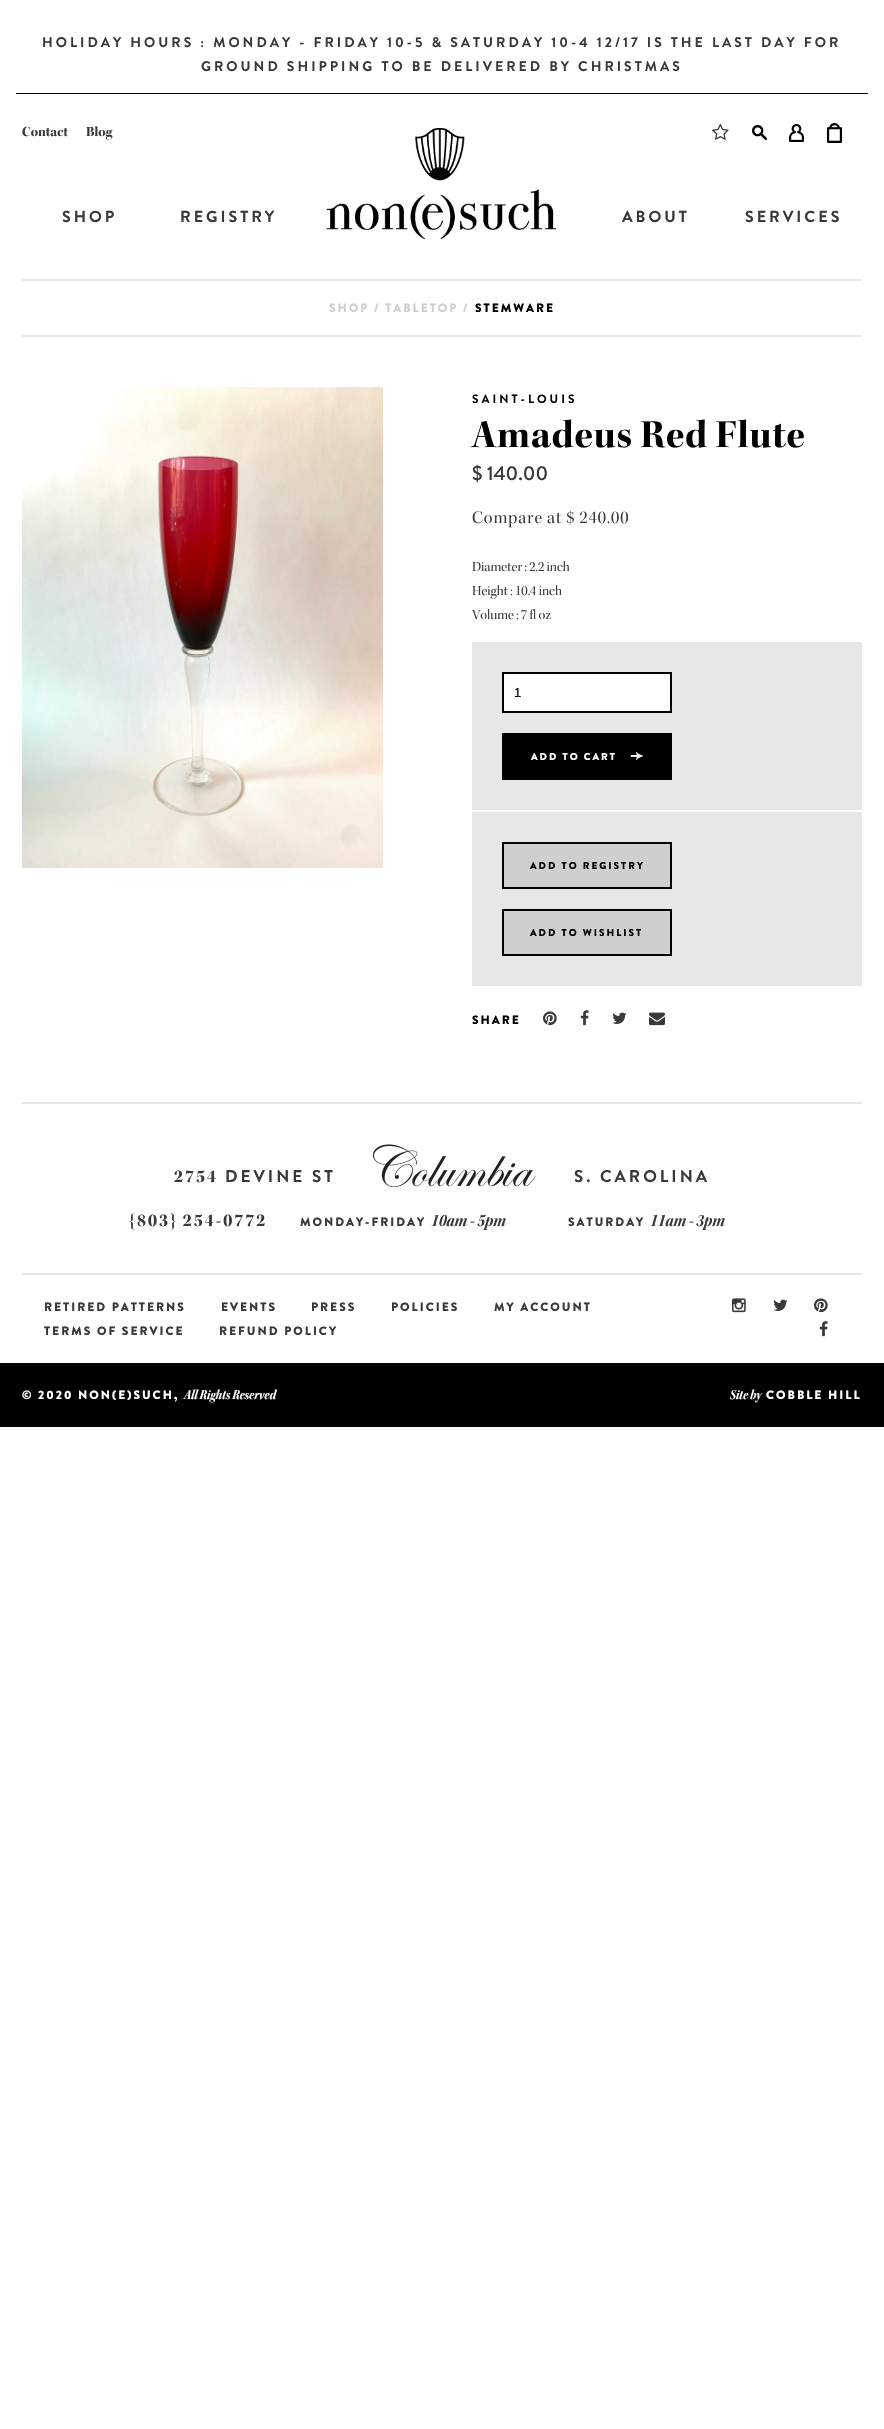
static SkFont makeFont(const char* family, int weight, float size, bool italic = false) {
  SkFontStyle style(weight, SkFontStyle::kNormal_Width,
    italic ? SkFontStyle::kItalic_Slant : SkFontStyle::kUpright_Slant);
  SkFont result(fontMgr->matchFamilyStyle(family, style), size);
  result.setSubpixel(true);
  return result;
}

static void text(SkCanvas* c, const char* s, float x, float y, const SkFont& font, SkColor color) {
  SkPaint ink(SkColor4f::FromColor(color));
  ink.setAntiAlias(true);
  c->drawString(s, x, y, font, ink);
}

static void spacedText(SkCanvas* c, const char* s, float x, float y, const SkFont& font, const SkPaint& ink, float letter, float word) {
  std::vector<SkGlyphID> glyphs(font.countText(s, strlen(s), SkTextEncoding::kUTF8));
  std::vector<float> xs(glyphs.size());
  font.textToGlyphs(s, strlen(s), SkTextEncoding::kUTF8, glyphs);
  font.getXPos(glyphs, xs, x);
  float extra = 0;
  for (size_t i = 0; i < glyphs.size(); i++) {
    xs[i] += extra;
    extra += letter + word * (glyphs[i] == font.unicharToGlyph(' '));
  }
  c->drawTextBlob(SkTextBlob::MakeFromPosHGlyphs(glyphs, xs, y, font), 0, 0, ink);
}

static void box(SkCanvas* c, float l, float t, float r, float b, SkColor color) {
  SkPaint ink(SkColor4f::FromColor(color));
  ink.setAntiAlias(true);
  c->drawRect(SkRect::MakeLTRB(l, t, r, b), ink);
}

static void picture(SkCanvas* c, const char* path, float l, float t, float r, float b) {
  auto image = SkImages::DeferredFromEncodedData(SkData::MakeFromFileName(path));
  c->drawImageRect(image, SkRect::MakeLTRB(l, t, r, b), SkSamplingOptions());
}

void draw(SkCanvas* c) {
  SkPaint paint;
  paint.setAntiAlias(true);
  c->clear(0xffffffff);
  box(c, 16, 93, 868, 94, 0xff000000);
  SkFont face1 = makeFont("Brandon Grotesque", 700, 14);
  paint.setColor(0xff3b3837);
  spacedText(c, "HOLIDAY HOURS : MONDAY - FRIDAY 10-5 & SATURDAY 10-4 12/17 IS THE LAST DAY FOR", 42, 47, face1, paint, 3, 0);
  spacedText(c, "GROUND SHIPPING TO BE DELIVERED BY CHRISTMAS", 201, 71, face1, paint, 3, 0);
  SkFont face2 = makeFont("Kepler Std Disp", 700, 14);
  text(c, "Contact", 22, 136, face2, 0xff3b3837);
  text(c, "Blog", 86, 136, face2, 0xff3b3837);
  picture(c, "img_01.png", 712, 123, 729, 140);
  box(c, 752, 125, 767, 140, 0xff000000);
  picture(c, "img_02.png", 752, 125, 767, 140);
  box(c, 789, 124, 804, 142, 0xff000000);
  picture(c, "img_03.png", 789, 124, 804, 142);
  box(c, 827, 123, 842, 143, 0xff000000);
  picture(c, "img_04.png", 827, 123, 842, 143);
  SkFont face3 = makeFont("Brandon Grotesque", 700, 16);
  spacedText(c, "SHOP", 62, 222, face3, paint, 3, 0);
  spacedText(c, "REGISTRY", 180, 222, face3, paint, 3, 0);
  picture(c, "img_05.png", 326, 128, 557, 240);
  spacedText(c, "ABOUT", 622, 222, face3, paint, 3, 0);
  spacedText(c, "SERVICES", 745, 222, face3, paint, 3, 0);
  box(c, 22, 279, 862, 281, 0xffe7e7e7);
  box(c, 22, 335, 862, 337, 0xffe7e7e7);
  SkFont face4 = makeFont("Brandon Grotesque", 900, 12);
  paint.setColor(0xffcfcfcf);
  spacedText(c, "SHOP / TABLETOP /", 329, 312, face4, paint, 2, 0);
  paint.setColor(0xff000000);
  spacedText(c, "STEMWARE", 475, 312, face4, paint, 2, 0);
  picture(c, "img_06.png", 22, 387, 383, 868);
  SkFont face5 = makeFont("Brandon Grotesque", 700, 12);
  spacedText(c, "SAINT-LOUIS", 472, 403, face5, paint, 3, 0);
  SkFont face6 = makeFont("Kepler Std Disp", 700, 40);
  spacedText(c, "Amadeus Red Flute", 472, 447, face6, paint, 1, 0);
  SkFont face7 = makeFont("Brandon Grotesque", 500, 20);
  text(c, "$ 140.00", 472, 480, face7, 0xff3b3837);
  SkFont face8 = makeFont("Kepler Std Disp", 400, 18);
  paint.setColor(0xff3b3837);
  spacedText(c, "Compare at $ 240.00", 472, 523, face8, paint, 1, 0);
  SkFont face9 = makeFont("Kepler Std Disp", 400, 14);
  text(c, "Diameter : 2.2 inch", 472, 571, face9, 0xff3b3837);
  text(c, "Height : 10.4 inch", 472, 595, face9, 0xff3b3837);
  text(c, "Volume : 7 fl oz", 472, 619, face9, 0xff3b3837);
  box(c, 472, 642, 862, 810, 0xffe7e7e7);
  paint.setColor(0xffffffff);
  c->drawRect(SkRect::MakeLTRB(503, 673, 671, 712), paint);
  paint.setStyle(SkPaint::kStroke_Style);
  paint.setStrokeWidth(2);
  paint.setColor(0xff000000);
  c->drawRect(SkRect::MakeLTRB(503, 673, 671, 712), paint);
  SkFont face10 = makeFont("Liberation Sans", 400, 13);
  text(c, "1", 514, 697, face10, 0xff000000);
  box(c, 502, 733, 672, 780, 0xff000000);
  SkFont face11 = makeFont("Brandon Grotesque", 900, 10);
  paint.setStyle(SkPaint::kFill_Style);
  paint.setColor(0xffffffff);
  spacedText(c, "ADD TO CART", 531, 760, face11, paint, 2, 0);
  picture(c, "img_07.png", 630, 752, 643, 760);
  box(c, 472, 812, 862, 986, 0xffe7e7e7);
  paint.setColor(0xffcfcfcf);
  c->drawRect(SkRect::MakeLTRB(503, 843, 671, 888), paint);
  paint.setStyle(SkPaint::kStroke_Style);
  paint.setColor(0xff000000);
  c->drawRect(SkRect::MakeLTRB(503, 843, 671, 888), paint);
  paint.setStyle(SkPaint::kFill_Style);
  spacedText(c, "ADD TO REGISTRY", 530, 869, face11, paint, 2, 0);
  paint.setColor(0xffcfcfcf);
  c->drawRect(SkRect::MakeLTRB(503, 910, 671, 955), paint);
  paint.setStyle(SkPaint::kStroke_Style);
  paint.setColor(0xff000000);
  c->drawRect(SkRect::MakeLTRB(503, 910, 671, 955), paint);
  paint.setStyle(SkPaint::kFill_Style);
  spacedText(c, "ADD TO WISHLIST", 530, 936, face11, paint, 2, 0);
  spacedText(c, "SHARE", 472, 1024, face4, paint, 2, 0);
  picture(c, "img_08.png", 543, 1011, 557, 1026);
  picture(c, "img_09.png", 580, 1010, 589, 1026);
  picture(c, "img_10.png", 612, 1012, 627, 1024);
  picture(c, "img_11.png", 649, 1012, 665, 1026);
  box(c, 22, 1102, 862, 1104, 0xffe7e7e7);
  box(c, 22, 1273, 862, 1275, 0xffe7e7e7);
  SkFont face12 = makeFont("Kepler Std Disp", 700, 18);
  paint.setColor(0xff3b3837);
  spacedText(c, "2754", 174, 1182, face12, paint, 2, 0);
  SkFont face13 = makeFont("Brandon Grotesque", 700, 17);
  spacedText(c, "DEVINE ST", 225, 1182, face13, paint, 3, 0);
  picture(c, "img_12.png", 373, 1144, 536, 1187);
  spacedText(c, "S. CAROLINA", 574, 1182, face13, paint, 3, 0);
  spacedText(c, "{803} 254-0772", 129, 1226, face12, paint, 2, 0);
  spacedText(c, "MONDAY-FRIDAY", 300, 1226, face4, paint, 2, 0);
  SkFont face14 = makeFont("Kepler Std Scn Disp", 700, 18, true);
  text(c, "10am - 5pm", 431, 1226, face14, 0xff3b3837);
  spacedText(c, "SATURDAY", 568, 1226, face4, paint, 2, 0);
  text(c, "11am - 3pm", 650, 1226, face14, 0xff3b3837);
  spacedText(c, "RETIRED PATTERNS", 44, 1311, face4, paint, 2, 0);
  spacedText(c, "EVENTS", 221, 1311, face4, paint, 2, 0);
  spacedText(c, "PRESS", 311, 1311, face4, paint, 2, 0);
  spacedText(c, "POLICIES", 391, 1311, face4, paint, 2, 0);
  spacedText(c, "MY ACCOUNT", 494, 1311, face4, paint, 2, 0);
  spacedText(c, "TERMS OF SERVICE", 44, 1335, face4, paint, 2, 0);
  spacedText(c, "REFUND POLICY", 219, 1335, face4, paint, 2, 0);
  picture(c, "img_13.png", 732, 1298, 746, 1313);
  picture(c, "img_10.png", 773, 1299, 788, 1311);
  picture(c, "img_08.png", 814, 1298, 828, 1313);
  picture(c, "img_09.png", 819, 1321, 828, 1337);
  box(c, 0, 1363, 884, 1427, 0xff000000);
  paint.setColor(0xffffffff);
  spacedText(c, "© 2020 NON(E)SUCH,", 22, 1399, face4, paint, 2, 0);
  SkFont face15 = makeFont("Kepler Std Scn Disp", 700, 14, true);
  text(c, "All Rights Reserved", 184, 1399, face15, 0xffffffff);
  text(c, "Site by", 730, 1399, face15, 0xffffffff);
  spacedText(c, "COBBLE HILL", 766, 1399, face4, paint, 2, 0);
}
